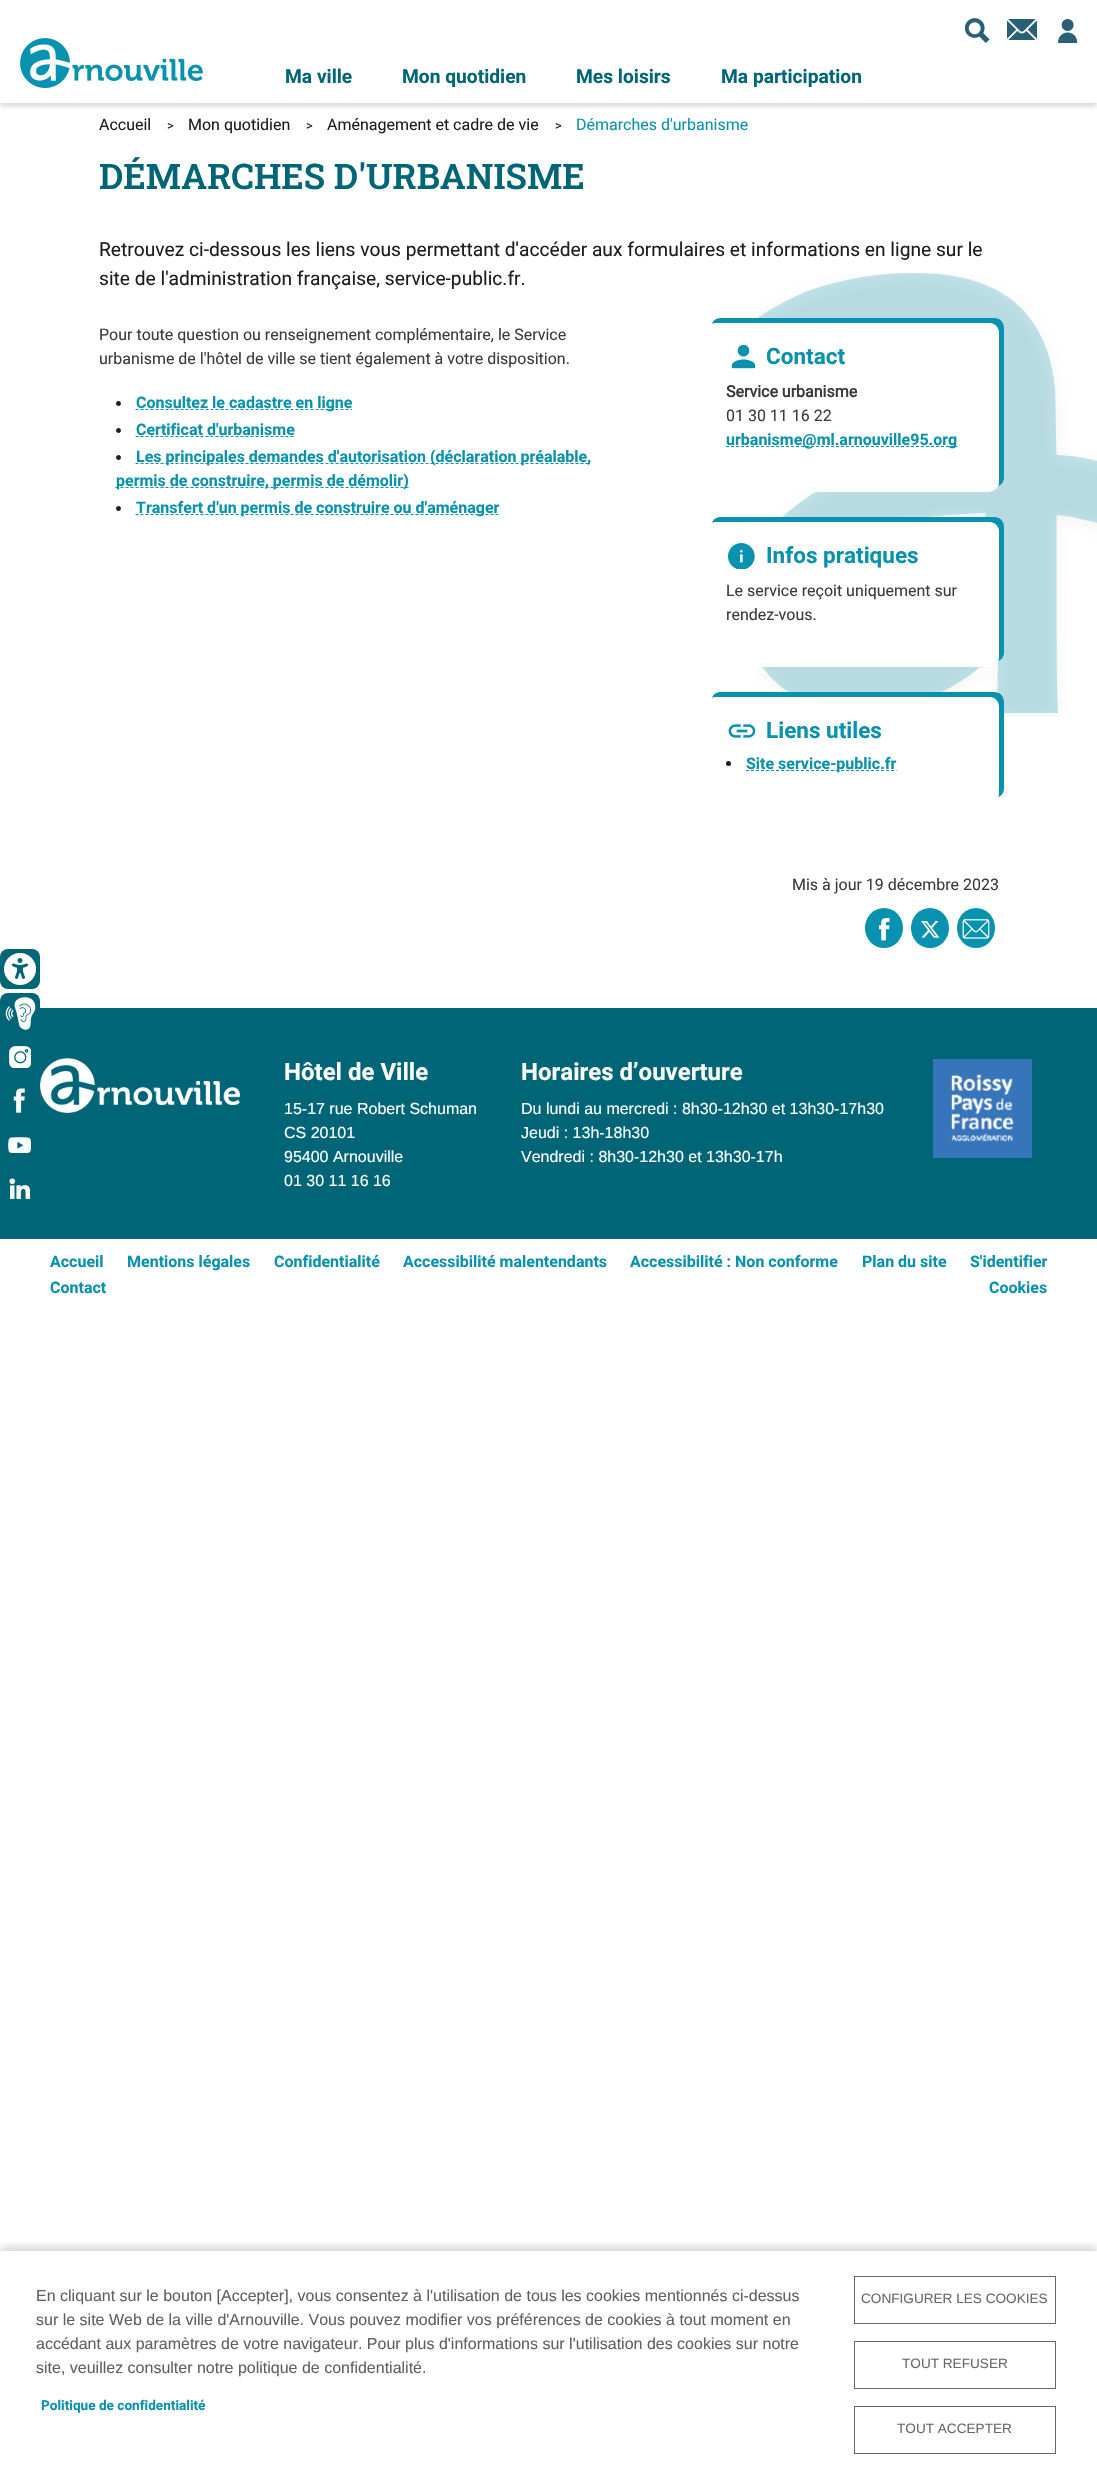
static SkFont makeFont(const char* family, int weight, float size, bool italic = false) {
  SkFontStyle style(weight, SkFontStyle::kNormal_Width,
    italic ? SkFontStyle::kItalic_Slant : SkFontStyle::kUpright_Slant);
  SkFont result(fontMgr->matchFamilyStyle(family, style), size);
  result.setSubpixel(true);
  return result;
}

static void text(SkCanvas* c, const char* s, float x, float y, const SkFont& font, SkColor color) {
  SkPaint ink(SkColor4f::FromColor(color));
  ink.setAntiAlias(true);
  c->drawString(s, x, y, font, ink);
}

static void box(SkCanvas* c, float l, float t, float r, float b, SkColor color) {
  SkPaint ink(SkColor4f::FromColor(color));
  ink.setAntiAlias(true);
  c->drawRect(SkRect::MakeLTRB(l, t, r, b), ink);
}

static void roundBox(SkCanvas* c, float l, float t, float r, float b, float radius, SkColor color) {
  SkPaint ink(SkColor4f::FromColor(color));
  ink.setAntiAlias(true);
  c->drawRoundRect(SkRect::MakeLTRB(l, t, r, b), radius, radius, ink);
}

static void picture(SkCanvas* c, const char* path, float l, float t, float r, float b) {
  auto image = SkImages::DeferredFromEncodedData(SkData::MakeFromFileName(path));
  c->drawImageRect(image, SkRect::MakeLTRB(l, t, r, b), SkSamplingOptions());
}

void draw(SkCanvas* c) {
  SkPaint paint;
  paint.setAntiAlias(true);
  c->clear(0xffffffff);
  roundBox(c, 0, 949, 40, 989, 8, 0xff016578);
  picture(c, "img_01.png", 4, 953, 36, 985);
  c->save();
  c->clipRect(SkRect::MakeLTRB(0, 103, 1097, 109));
  paint.setColor(0x29000000);
  paint.setMaskFilter(SkMaskFilter::MakeBlur(kNormal_SkBlurStyle, 3));
  c->drawRect(SkRect::MakeLTRB(0, 3, 1097, 106), paint);
  paint.setMaskFilter(nullptr);
  c->restore();
  picture(c, "img_02.png", 965, 18, 990, 43);
  picture(c, "img_03.png", 1007, 19, 1037, 40);
  picture(c, "img_04.png", 1058, 19, 1078, 43);
  picture(c, "img_05.png", 20, 38, 203, 88);
  SkFont face1 = makeFont("Roboto", 700, 19.2f);
  text(c, "Ma ville", 285, 83, face1, 0xff016578);
  text(c, "Mon quotidien", 402, 83, face1, 0xff016578);
  text(c, "Mes loisirs", 576, 83, face1, 0xff016578);
  text(c, "Ma participation", 721, 83, face1, 0xff016578);
  SkFont face2 = makeFont("Roboto", 400, 16);
  text(c, "Accueil", 99, 130, face2, 0xff1d1d1b);
  SkFont face3 = makeFont("Roboto", 400, 13);
  text(c, ">", 167, 130, face3, 0xff1d1d1b);
  text(c, "Mon quotidien", 188, 130, face2, 0xff1d1d1b);
  text(c, ">", 306, 130, face3, 0xff1d1d1b);
  text(c, "Aménagement et cadre de vie", 327, 130, face2, 0xff1d1d1b);
  text(c, ">", 555, 130, face3, 0xff1d1d1b);
  text(c, "Démarches d'urbanisme", 576, 130, face2, 0xff0892af);
  SkFont face4 = makeFont("Roboto Slab", 600, 35.25f);
  text(c, "DÉMARCHES D'URBANISME", 99, 189, face4, 0xff016578);
  SkFont face5 = makeFont("Roboto", 400, 19.2f);
  text(c, "Retrouvez ci-dessous les liens vous permettant d'accéder aux formulaires et informations en ligne sur le", 99, 256, face5, 0xff1d1d1b);
  text(c, "site de l'administration française, service-public.fr.", 99, 285, face5, 0xff1d1d1b);
  text(c, "Pour toute question ou renseignement complémentaire, le Service", 99, 340, face2, 0xff3b3b3b);
  text(c, "urbanisme de l'hôtel de ville se tient également à votre disposition.", 99, 364, face2, 0xff3b3b3b);
  paint.setColor(0xff1d1d1b);
  c->drawCircle(118.5f, 403.5f, 2, paint);
  paint.setStyle(SkPaint::kStroke_Style);
  paint.setStrokeWidth(1);
  c->drawCircle(118.5f, 403.5f, 2, paint);
  paint.setColor(0xff0892af);
  paint.setPathEffect(SkDashPathEffect::Make({{3, 2}}, 0));
  c->drawPath(SkPathBuilder().moveTo(135.5f, 409.5f).lineTo(352, 409.5f).detach(), paint);
  paint.setPathEffect(nullptr);
  SkFont face6 = makeFont("Roboto", 700, 16);
  text(c, "Consultez le cadastre en ligne", 136, 408, face6, 0xff0892af);
  paint.setStyle(SkPaint::kFill_Style);
  paint.setColor(0xff1d1d1b);
  c->drawCircle(118.5f, 430.5f, 2, paint);
  paint.setStyle(SkPaint::kStroke_Style);
  c->drawCircle(118.5f, 430.5f, 2, paint);
  text(c, "Certificat d'urbanisme", 136, 435, face6, 0xff0892af);
  paint.setColor(0xff0892af);
  paint.setPathEffect(SkDashPathEffect::Make({{3, 2}}, 0));
  c->drawPath(SkPathBuilder().moveTo(135.5f, 436.5f).lineTo(294.5f, 436.5f).detach(), paint);
  paint.setPathEffect(nullptr);
  paint.setStyle(SkPaint::kFill_Style);
  paint.setColor(0xff1d1d1b);
  c->drawCircle(118.5f, 457.5f, 2, paint);
  paint.setStyle(SkPaint::kStroke_Style);
  c->drawCircle(118.5f, 457.5f, 2, paint);
  paint.setColor(0xff0892af);
  paint.setPathEffect(SkDashPathEffect::Make({{3, 2}}, 0));
  c->drawPath(SkPathBuilder().moveTo(135.5f, 463.5f).lineTo(590.5f, 463.5f).detach(), paint);
  paint.setPathEffect(nullptr);
  text(c, "Les principales demandes d'autorisation (déclaration préalable,", 136, 462, face6, 0xff0892af);
  paint.setPathEffect(SkDashPathEffect::Make({{3, 2}}, 0));
  c->drawPath(SkPathBuilder().moveTo(115.5f, 487.5f).lineTo(408.5f, 487.5f).detach(), paint);
  paint.setPathEffect(nullptr);
  text(c, "permis de construire, permis de démolir)", 116, 486, face6, 0xff0892af);
  paint.setStyle(SkPaint::kFill_Style);
  paint.setColor(0xff1d1d1b);
  c->drawCircle(118.5f, 508.5f, 2, paint);
  paint.setStyle(SkPaint::kStroke_Style);
  c->drawCircle(118.5f, 508.5f, 2, paint);
  paint.setColor(0xff0892af);
  paint.setPathEffect(SkDashPathEffect::Make({{3, 2}}, 0));
  c->drawPath(SkPathBuilder().moveTo(135.5f, 514.5f).lineTo(499, 514.5f).detach(), paint);
  paint.setPathEffect(nullptr);
  text(c, "Transfert d'un permis de construire ou d'aménager", 136, 513, face6, 0xff0892af);
  picture(c, "img_06.png", 758, 273, 1097, 717);
  paint.setStyle(SkPaint::kFill_Style);
  c->drawPath(SkPathBuilder().moveTo(721, 318).cubicTo(717, 318, 713, 320, 712, 324).lineTo(716, 323).lineTo(989, 323).cubicTo(995, 323, 999, 327, 999, 333).lineTo(999, 482).lineTo(998, 486).cubicTo(1002, 485, 1004, 481, 1004, 477).lineTo(1004, 328).cubicTo(1004, 322, 1000, 318, 994, 318).close().detach(), paint);
  roundBox(c, 706, 323, 999, 492, 10, 0xffffffff);
  picture(c, "img_07.png", 731, 344, 756, 369);
  SkFont face7 = makeFont("Roboto", 700, 22.5f);
  text(c, "Contact", 766, 364, face7, 0xff0892af);
  SkFont face8 = makeFont("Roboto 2", 700, 16);
  text(c, "Service urbanisme", 726, 397, face8, 0xff3b3b3b);
  text(c, "01 30 11 16 22", 726, 421, face2, 0xff3b3b3b);
  paint.setStyle(SkPaint::kStroke_Style);
  paint.setPathEffect(SkDashPathEffect::Make({{3, 2}}, 0));
  c->drawPath(SkPathBuilder().moveTo(726, 446.5f).lineTo(957, 446.5f).detach(), paint);
  paint.setPathEffect(nullptr);
  text(c, "urbanisme@ml.arnouville95.org", 726, 445, face6, 0xff0892af);
  paint.setStyle(SkPaint::kFill_Style);
  c->drawPath(SkPathBuilder().moveTo(721, 517).cubicTo(717, 517, 713, 519, 712, 523).lineTo(716, 522).lineTo(989, 522).cubicTo(995, 522, 999, 526, 999, 532).lineTo(999, 657).lineTo(998, 661).cubicTo(1002, 660, 1004, 656, 1004, 652).lineTo(1004, 527).cubicTo(1004, 521, 1000, 517, 994, 517).close().detach(), paint);
  roundBox(c, 706, 522, 999, 667, 10, 0xffffffff);
  picture(c, "img_08.png", 728, 543, 755, 569);
  text(c, "Infos pratiques", 766, 563, face7, 0xff0892af);
  text(c, "Le service reçoit uniquement sur", 726, 596, face2, 0xff3b3b3b);
  text(c, "rendez-vous.", 726, 620, face2, 0xff3b3b3b);
  c->drawPath(SkPathBuilder().moveTo(721, 692).cubicTo(717, 692, 713, 694, 712, 698).lineTo(716, 697).lineTo(989, 697).cubicTo(995, 697, 999, 701, 999, 707).lineTo(999, 793).lineTo(998, 797).cubicTo(1002, 796, 1004, 792, 1004, 788).lineTo(1004, 702).cubicTo(1004, 696, 1000, 692, 994, 692).close().detach(), paint);
  roundBox(c, 706, 697, 999, 803, 10, 0xffffffff);
  picture(c, "img_09.png", 728, 724, 756, 738);
  text(c, "Liens utiles", 766, 738, face7, 0xff0892af);
  paint.setColor(0xff1d1d1b);
  c->drawCircle(728.5f, 763.5f, 2.5f, paint);
  paint.setStyle(SkPaint::kStroke_Style);
  paint.setColor(0xff0892af);
  paint.setPathEffect(SkDashPathEffect::Make({{3, 2}}, 0));
  c->drawPath(SkPathBuilder().moveTo(746, 770.5f).lineTo(896.5f, 770.5f).detach(), paint);
  paint.setPathEffect(nullptr);
  text(c, "Site service-public.fr", 746, 769, face6, 0xff0892af);
  text(c, "Mis à jour 19 décembre 2023", 792, 890, face2, 0xff3b3b3b);
  paint.setStyle(SkPaint::kFill_Style);
  c->drawOval(SkRect::MakeLTRB(865, 908, 903, 948), paint);
  picture(c, "img_10.png", 879, 918, 890, 941);
  c->drawOval(SkRect::MakeLTRB(911, 908, 949, 948), paint);
  picture(c, "img_11.png", 921, 921, 940, 938);
  c->drawOval(SkRect::MakeLTRB(957, 908, 995, 948), paint);
  picture(c, "img_12.png", 962, 919, 990, 939);
  box(c, 0, 1008, 1097, 1239, 0xff016578);
  roundBox(c, 0, 993, 40, 1033, 8, 0xff016578);
  picture(c, "img_13.png", 5, 997, 36, 1030);
  picture(c, "img_14.png", 9, 1046, 31, 1068);
  picture(c, "img_15.png", 13, 1088, 25, 1113);
  picture(c, "img_16.png", 8, 1137, 31, 1153);
  picture(c, "img_17.png", 9, 1178, 30, 1199);
  picture(c, "img_18.png", 40, 1058, 240, 1113);
  SkFont face9 = makeFont("Roboto", 700, 24);
  text(c, "Hôtel de Ville", 284, 1080, face9, 0xffffffff);
  SkFont face10 = makeFont("Liberation Sans", 400, 16);
  text(c, "15-17 rue Robert Schuman", 284, 1114, face10, 0xffffffff);
  text(c, "CS 20101", 284, 1138, face10, 0xffffffff);
  text(c, "95400 Arnouville", 284, 1162, face10, 0xffffffff);
  text(c, "01 30 11 16 16", 284, 1186, face10, 0xffffffff);
  text(c, "Horaires d’ouverture", 521, 1080, face9, 0xffffffff);
  text(c, "Du lundi au mercredi : 8h30-12h30 et 13h30-17h30", 521, 1114, face10, 0xffffffff);
  text(c, "Jeudi : 13h-18h30", 521, 1138, face10, 0xffffffff);
  text(c, "Vendredi : 8h30-12h30 et 13h30-17h", 521, 1162, face10, 0xffffffff);
  picture(c, "img_19.png", 933, 1059, 1032, 1158);
  c->save();
  c->clipRect(SkRect::MakeLTRB(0, 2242, 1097, 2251));
  paint.setColor(0x33000000);
  paint.setMaskFilter(SkMaskFilter::MakeBlur(kNormal_SkBlurStyle, 5));
  c->drawRect(SkRect::MakeLTRB(0, 2248, 1097, 2475), paint);
  paint.setMaskFilter(nullptr);
  c->restore();
  text(c, "En cliquant sur le bouton [Accepter], vous consentez à l'utilisation de tous les cookies mentionnés ci-dessus", 36, 2301, face10, 0xff606060);
  text(c, "sur le site Web de la ville d'Arnouville. Vous pouvez modifier vos préférences de cookies à tout moment en", 36, 2325, face10, 0xff606060);
  text(c, "accédant aux paramètres de votre navigateur. Pour plus d'informations sur l'utilisation des cookies sur notre", 36, 2349, face10, 0xff606060);
  text(c, "site, veuillez consulter notre politique de confidentialité.", 36, 2373, face10, 0xff606060);
  SkFont face11 = makeFont("Roboto", 700, 13.6f);
  text(c, "Politique de confidentialité", 41, 2410, face11, 0xff0892af);
  paint.setStyle(SkPaint::kStroke_Style);
  paint.setColor(0xff686868);
  c->drawRect(SkRect::MakeLTRB(854.5f, 2276.5f, 1055.5f, 2323.5f), paint);
  SkFont face12 = makeFont("Liberation Sans", 400, 13.6f);
  text(c, "CONFIGURER LES COOKIES", 861, 2303, face12, 0xff686868);
  c->drawRect(SkRect::MakeLTRB(854.5f, 2341.5f, 1055.5f, 2388.5f), paint);
  text(c, "TOUT REFUSER", 902, 2368, face12, 0xff686868);
  c->drawRect(SkRect::MakeLTRB(854.5f, 2406.5f, 1055.5f, 2453.5f), paint);
  text(c, "TOUT ACCEPTER", 897, 2433, face12, 0xff686868);
  text(c, "Accueil", 50, 1267, face6, 0xff0892af);
  text(c, "Mentions légales", 127, 1267, face6, 0xff0892af);
  text(c, "Confidentialité", 274, 1267, face6, 0xff0892af);
  text(c, "Accessibilité malentendants", 403, 1267, face6, 0xff0892af);
  text(c, "Accessibilité : Non conforme", 630, 1267, face6, 0xff0892af);
  text(c, "Plan du site", 862, 1267, face6, 0xff0892af);
  text(c, "S'identifier", 970, 1267, face6, 0xff0892af);
  text(c, "Contact", 50, 1293, face6, 0xff0892af);
  text(c, "Cookies", 989, 1293, face6, 0xff0892af);
}
